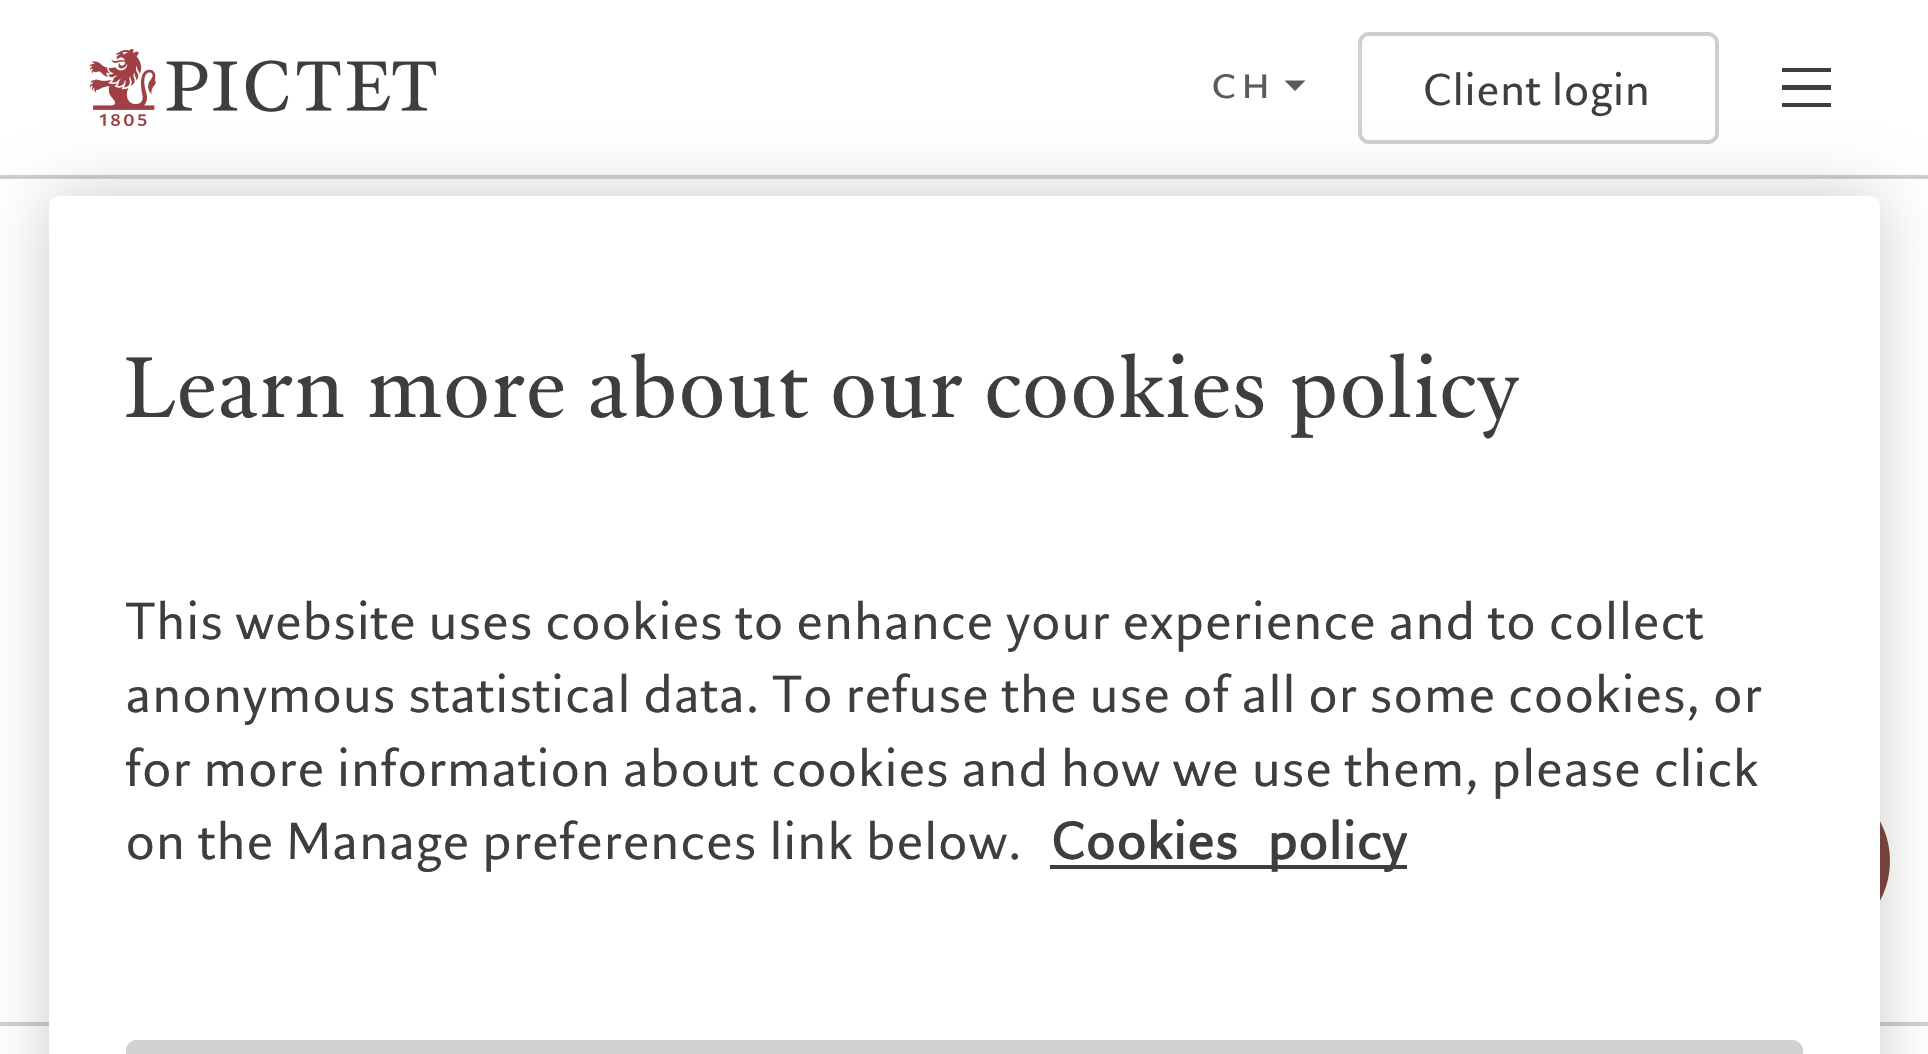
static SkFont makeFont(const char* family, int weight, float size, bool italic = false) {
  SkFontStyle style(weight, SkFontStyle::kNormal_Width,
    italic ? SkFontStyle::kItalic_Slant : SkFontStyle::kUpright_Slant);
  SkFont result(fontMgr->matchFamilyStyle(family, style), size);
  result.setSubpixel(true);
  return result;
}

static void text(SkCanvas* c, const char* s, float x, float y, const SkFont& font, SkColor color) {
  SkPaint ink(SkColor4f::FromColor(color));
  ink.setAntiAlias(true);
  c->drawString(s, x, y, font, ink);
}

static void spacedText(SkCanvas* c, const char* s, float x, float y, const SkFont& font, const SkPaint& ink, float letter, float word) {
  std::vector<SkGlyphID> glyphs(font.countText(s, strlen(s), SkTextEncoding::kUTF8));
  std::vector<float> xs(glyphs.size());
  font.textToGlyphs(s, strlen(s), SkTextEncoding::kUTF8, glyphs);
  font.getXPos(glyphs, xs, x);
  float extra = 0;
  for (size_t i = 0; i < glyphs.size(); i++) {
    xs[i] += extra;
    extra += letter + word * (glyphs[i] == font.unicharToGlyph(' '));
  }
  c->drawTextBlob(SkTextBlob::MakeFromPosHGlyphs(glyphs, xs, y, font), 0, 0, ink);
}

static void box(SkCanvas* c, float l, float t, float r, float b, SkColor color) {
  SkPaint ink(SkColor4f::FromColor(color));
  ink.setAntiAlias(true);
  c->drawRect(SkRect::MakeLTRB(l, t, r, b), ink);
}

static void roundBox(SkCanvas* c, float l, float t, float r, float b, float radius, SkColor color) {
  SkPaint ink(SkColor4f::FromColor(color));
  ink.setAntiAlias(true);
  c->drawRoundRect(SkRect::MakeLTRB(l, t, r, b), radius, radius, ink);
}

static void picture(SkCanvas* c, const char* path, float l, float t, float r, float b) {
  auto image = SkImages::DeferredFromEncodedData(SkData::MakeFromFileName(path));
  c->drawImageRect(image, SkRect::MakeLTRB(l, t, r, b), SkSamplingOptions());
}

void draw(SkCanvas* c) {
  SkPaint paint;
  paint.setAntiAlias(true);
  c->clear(0xffffffff);
  box(c, 0, 175, 1928, 179, 0xffcfcfcf);
  picture(c, "img_01.png", 89, 49, 156, 126);
  picture(c, "img_02.png", 166, 60, 437, 112);
  SkFont face1 = makeFont("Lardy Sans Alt", 400, 42);
  text(c, "ch", 1209, 98, face1, 0xff5b5b5b);
  paint.setColor(0xff5b5b5b);
  c->drawPath(SkPathBuilder().moveTo(1284.5f, 80.5f).lineTo(1305.5f, 80.5f).lineTo(1295, 91).close().detach(), paint);
  paint.setStyle(SkPaint::kStroke_Style);
  paint.setStrokeWidth(4);
  paint.setColor(0xffcfcfcf);
  c->drawRoundRect(SkRect::MakeLTRB(1360, 34, 1717, 142), 9, 9, paint);
  SkFont face2 = makeFont("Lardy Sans", 400, 42);
  text(c, "Client login", 1423, 105, face2, 0xff3e3e3e);
  box(c, 1782, 68, 1831, 72, 0xff3e3e3e);
  box(c, 1782, 85, 1831, 90, 0xff3e3e3e);
  box(c, 1782, 103, 1831, 107, 0xff3e3e3e);
  box(c, 0, 1022, 1928, 1026, 0xffcfcfcf);
  paint.setStyle(SkPaint::kFill_Style);
  paint.setColor(0xff804940);
  c->drawCircle(1806, 861, 84, paint);
  paint.setColor(0x33000000);
  paint.setMaskFilter(SkMaskFilter::MakeBlur(kNormal_SkBlurStyle, 31.5f));
  c->drawRoundRect(SkRect::MakeLTRB(49, 196, 1880, 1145), 9, 9, paint);
  paint.setMaskFilter(nullptr);
  roundBox(c, 49, 196, 1880, 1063, 9, 0xffffffff);
  SkFont face3 = makeFont("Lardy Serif", 400, 80.5f);
  paint.setColor(0xff3e3e3e);
  spacedText(c, "Learn more about our cookies policy", 125, 417, face3, paint, 0, -0.75f);
  SkFont face4 = makeFont("Lardy Sans", 400, 49);
  spacedText(c, "This website uses cookies to enhance your experience and to collect", 125, 639, face4, paint, 0, -0.25f);
  spacedText(c, "anonymous statistical data. To refuse the use of all or some cookies, or", 125, 712, face4, paint, 0, -0.2f);
  spacedText(c, "for more information about cookies and how we use them, please click", 125, 786, face4, paint, 0, -0.25f);
  text(c, "on the Manage preferences link below.", 125, 859, face4, 0xff3e3e3e);
  box(c, 1050, 865, 1407, 869, 0xff3e3e3e);
  SkFont face5 = makeFont("Lardy Sans", 700, 49);
  spacedText(c, "Cookies policy", 1051, 859, face5, paint, 0, 17);
  paint.setColor(0xffd1d1d1);
  c->drawPath(SkPathBuilder().moveTo(137, 1040).lineTo(1792, 1040).cubicTo(1798, 1040, 1803, 1045, 1803, 1051).lineTo(1803, 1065).lineTo(126, 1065).lineTo(126, 1051).cubicTo(126, 1045, 131, 1040, 137, 1040).close().detach(), paint);
  c->drawPath(SkPathBuilder().moveTo(137, 1040).cubicTo(131, 1040, 126, 1045, 126, 1051).lineTo(126, 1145).lineTo(130, 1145).lineTo(130, 1051).cubicTo(130, 1047, 133, 1044, 137, 1044).lineTo(1792, 1044).cubicTo(1796, 1044, 1799, 1047, 1799, 1051).lineTo(1799, 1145).lineTo(1803, 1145).lineTo(1803, 1051).cubicTo(1803, 1045, 1798, 1040, 1792, 1040).close().detach(), paint);
}
